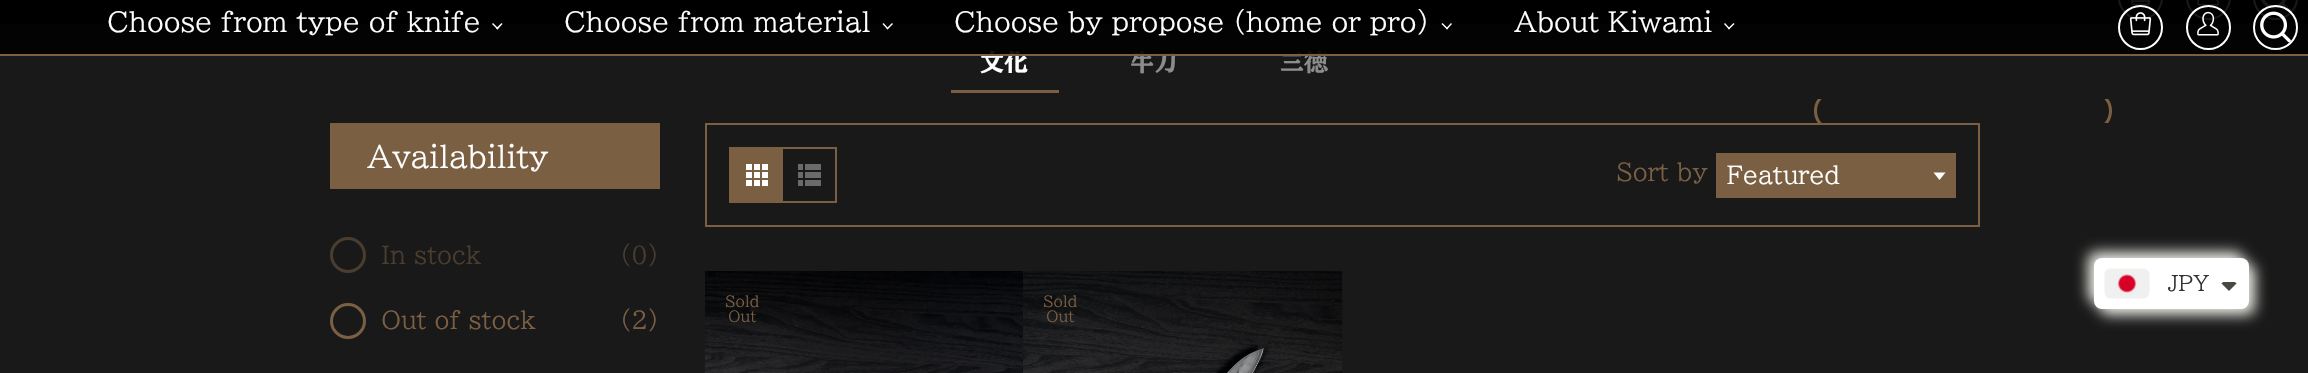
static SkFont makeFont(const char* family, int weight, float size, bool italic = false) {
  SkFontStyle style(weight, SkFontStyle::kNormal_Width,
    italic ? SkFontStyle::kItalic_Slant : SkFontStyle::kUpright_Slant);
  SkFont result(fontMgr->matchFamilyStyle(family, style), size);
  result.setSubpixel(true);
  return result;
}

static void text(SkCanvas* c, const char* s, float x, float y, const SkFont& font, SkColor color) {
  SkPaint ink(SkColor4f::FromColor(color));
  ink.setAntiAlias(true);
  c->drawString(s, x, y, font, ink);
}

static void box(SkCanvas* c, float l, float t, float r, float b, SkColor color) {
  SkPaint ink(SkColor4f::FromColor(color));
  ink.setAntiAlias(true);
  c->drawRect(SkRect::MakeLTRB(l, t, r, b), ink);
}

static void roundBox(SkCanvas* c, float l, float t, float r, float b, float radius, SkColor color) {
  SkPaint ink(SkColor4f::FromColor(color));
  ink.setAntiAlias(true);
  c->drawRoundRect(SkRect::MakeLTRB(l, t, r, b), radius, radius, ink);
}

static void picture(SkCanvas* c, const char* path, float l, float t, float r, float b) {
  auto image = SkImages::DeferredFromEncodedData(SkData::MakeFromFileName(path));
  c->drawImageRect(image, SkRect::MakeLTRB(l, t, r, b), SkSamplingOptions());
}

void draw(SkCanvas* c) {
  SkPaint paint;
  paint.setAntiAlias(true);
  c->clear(0xff191919);
  box(c, 0, 0, 2308, 24, 0xff000000);
  paint.setStyle(SkPaint::kStroke_Style);
  paint.setStrokeWidth(2);
  paint.setColor(0xffffffff);
  c->drawCircle(2140.5f, -2.5f, 21.5f, paint);
  picture(c, "img_01.png", 2131, 0, 2150, 6);
  c->drawCircle(2208.5f, -2.5f, 21.5f, paint);
  picture(c, "img_02.png", 2197, 0, 2219, 6);
  c->drawCircle(2275.5f, -2.5f, 21.5f, paint);
  picture(c, "img_03.png", 2261, 0, 2291, 13);
  SkFont face1 = makeFont("BIZ UDPMincho", 700, 24);
  text(c, "文化", 980, 71, face1, 0xffffffff);
  text(c, "牛刀", 1130, 71, face1, 0xff8c8c8c);
  text(c, "三徳", 1280, 71, face1, 0xff8c8c8c);
  box(c, 0, 0, 2308, 54, 0xe6000000);
  box(c, 0, 54, 2308, 56, 0xff7b5f43);
  SkFont face2 = makeFont("BIZ UDPMincho", 400, 27);
  text(c, "Choose from type of knife", 107, 32, face2, 0xffffffff);
  paint.setStyle(SkPaint::kFill_Style);
  c->drawPath(SkPathBuilder().moveTo(502.5f, 24).lineTo(497.5f, 29.5f).lineTo(496, 28.5f).lineTo(501.5f, 23).close().detach(), paint);
  c->drawPath(SkPathBuilder().moveTo(498.5f, 28.5f).lineTo(497.5f, 29.5f).lineTo(492, 24).lineTo(493, 23).close().detach(), paint);
  text(c, "Choose from material", 564, 32, face2, 0xffffffff);
  c->drawPath(SkPathBuilder().moveTo(893, 24).lineTo(887.5f, 29.5f).lineTo(886.5f, 28.5f).lineTo(892, 23).close().detach(), paint);
  c->drawPath(SkPathBuilder().moveTo(888.5f, 28.5f).lineTo(887.5f, 29.5f).lineTo(882.5f, 24).lineTo(883.5f, 23).close().detach(), paint);
  text(c, "Choose by propose (home or pro)", 954, 32, face2, 0xffffffff);
  c->drawPath(SkPathBuilder().moveTo(1452, 24).lineTo(1447, 29.5f).lineTo(1446, 28.5f).lineTo(1451, 23).close().detach(), paint);
  c->drawPath(SkPathBuilder().moveTo(1448, 28.5f).lineTo(1447, 29.5f).lineTo(1441.5f, 24).lineTo(1442.5f, 23).close().detach(), paint);
  text(c, "About Kiwami", 1514, 32, face2, 0xffffffff);
  c->drawPath(SkPathBuilder().moveTo(1734.5f, 24).lineTo(1729, 29.5f).lineTo(1728, 28.5f).lineTo(1733.5f, 23).close().detach(), paint);
  c->drawPath(SkPathBuilder().moveTo(1730, 28.5f).lineTo(1729, 29.5f).lineTo(1724, 24).lineTo(1725, 23).close().detach(), paint);
  paint.setStyle(SkPaint::kStroke_Style);
  c->drawCircle(2140.5f, 27.5f, 21.5f, paint);
  picture(c, "img_04.png", 2129, 12, 2152, 36);
  c->drawCircle(2208.5f, 27.5f, 21.5f, paint);
  picture(c, "img_05.png", 2197, 11, 2219, 36);
  c->drawCircle(2275.5f, 27.5f, 21.5f, paint);
  picture(c, "img_06.png", 2260, 11, 2291, 43);
  box(c, 951, 90, 1059, 93, 0xff7b5f43);
  paint.setColor(0xff7b5f43);
  c->drawRect(SkRect::MakeLTRB(706, 124, 1979, 226), paint);
  c->save();
  c->clipRect(SkRect::MakeLTRB(0, 99, 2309, 123));
  paint.setStrokeWidth(3);
  c->drawRoundRect(SkRect::MakeLTRB(1815.5f, 91.5f, 2110.5f, 130.5f), 19.5f, 19.5f, paint);
  c->restore();
  box(c, 330, 123, 660, 189, 0xff7b5f43);
  SkFont face3 = makeFont("BIZ UDPMincho", 400, 30);
  text(c, "Availability", 367, 168, face3, 0xffffffff);
  paint.setColor(0xff4a3c2e);
  c->drawCircle(348, 255, 16.5f, paint);
  SkFont face4 = makeFont("BIZ UDPMincho", 400, 24);
  text(c, "In stock", 381, 264, face4, 0xff4a3c2e);
  text(c, "(0)", 620, 264, face4, 0xff4a3c2e);
  paint.setColor(0xff7b5f43);
  c->drawCircle(348, 321, 16.5f, paint);
  text(c, "Out of stock", 381, 329, face4, 0xff7b5f43);
  text(c, "(2)", 620, 329, face4, 0xff7b5f43);
  paint.setStrokeWidth(2);
  c->drawRect(SkRect::MakeLTRB(730, 148, 836, 202), paint);
  box(c, 731, 149, 783, 201, 0xff7b5f43);
  picture(c, "img_07.png", 746, 164, 768, 186);
  picture(c, "img_08.png", 798, 164, 821, 186);
  text(c, "Sort by", 1616, 181, face4, 0xff7b5f43);
  box(c, 1716, 153, 1956, 198, 0xff7b5f43);
  text(c, "Featured", 1727, 184, face4, 0xffffffff);
  paint.setStyle(SkPaint::kFill_Style);
  paint.setColor(0xffffffff);
  c->drawPath(SkPathBuilder().moveTo(1933.5f, 172.5f).lineTo(1945.5f, 172.5f).lineTo(1939.5f, 180).close().detach(), paint);
  picture(c, "img_09.png", 705, 271, 1023, 373);
  SkFont face5 = makeFont("BIZ UDPMincho", 400, 15);
  text(c, "Sold", 725, 307, face5, 0xff7b5f43);
  text(c, "Out", 728, 322, face5, 0xff7b5f43);
  picture(c, "img_10.png", 1023, 271, 1343, 373);
  text(c, "Sold", 1043, 307, face5, 0xff7b5f43);
  text(c, "Out", 1046, 322, face5, 0xff7b5f43);
  paint.setColor(0xffe8e8e2);
  paint.setMaskFilter(SkMaskFilter::MakeBlur(kNormal_SkBlurStyle, 7));
  c->drawRoundRect(SkRect::MakeLTRB(2088, 252, 2243, 303), 8, 8, paint);
  paint.setMaskFilter(nullptr);
  paint.setMaskFilter(SkMaskFilter::MakeBlur(kNormal_SkBlurStyle, 7));
  c->drawRoundRect(SkRect::MakeLTRB(2100, 264, 2255, 315), 8, 8, paint);
  paint.setMaskFilter(nullptr);
  roundBox(c, 2094, 258, 2249, 309, 8, 0xffffffff);
  picture(c, "img_11.png", 2104, 268, 2150, 299);
  SkFont face6 = makeFont("BIZ UDPMincho", 400, 21);
  text(c, "JPY", 2168, 291, face6, 0xff333333);
  paint.setColor(0xff474942);
  c->drawPath(SkPathBuilder().moveTo(2224.5f, 282).cubicTo(2223, 282, 2222, 282.5f, 2221.5f, 283.5f).lineTo(2229, 291).lineTo(2236.5f, 283.5f).cubicTo(2236, 282.5f, 2235, 282, 2233.5f, 282).close().detach(), paint);
}
